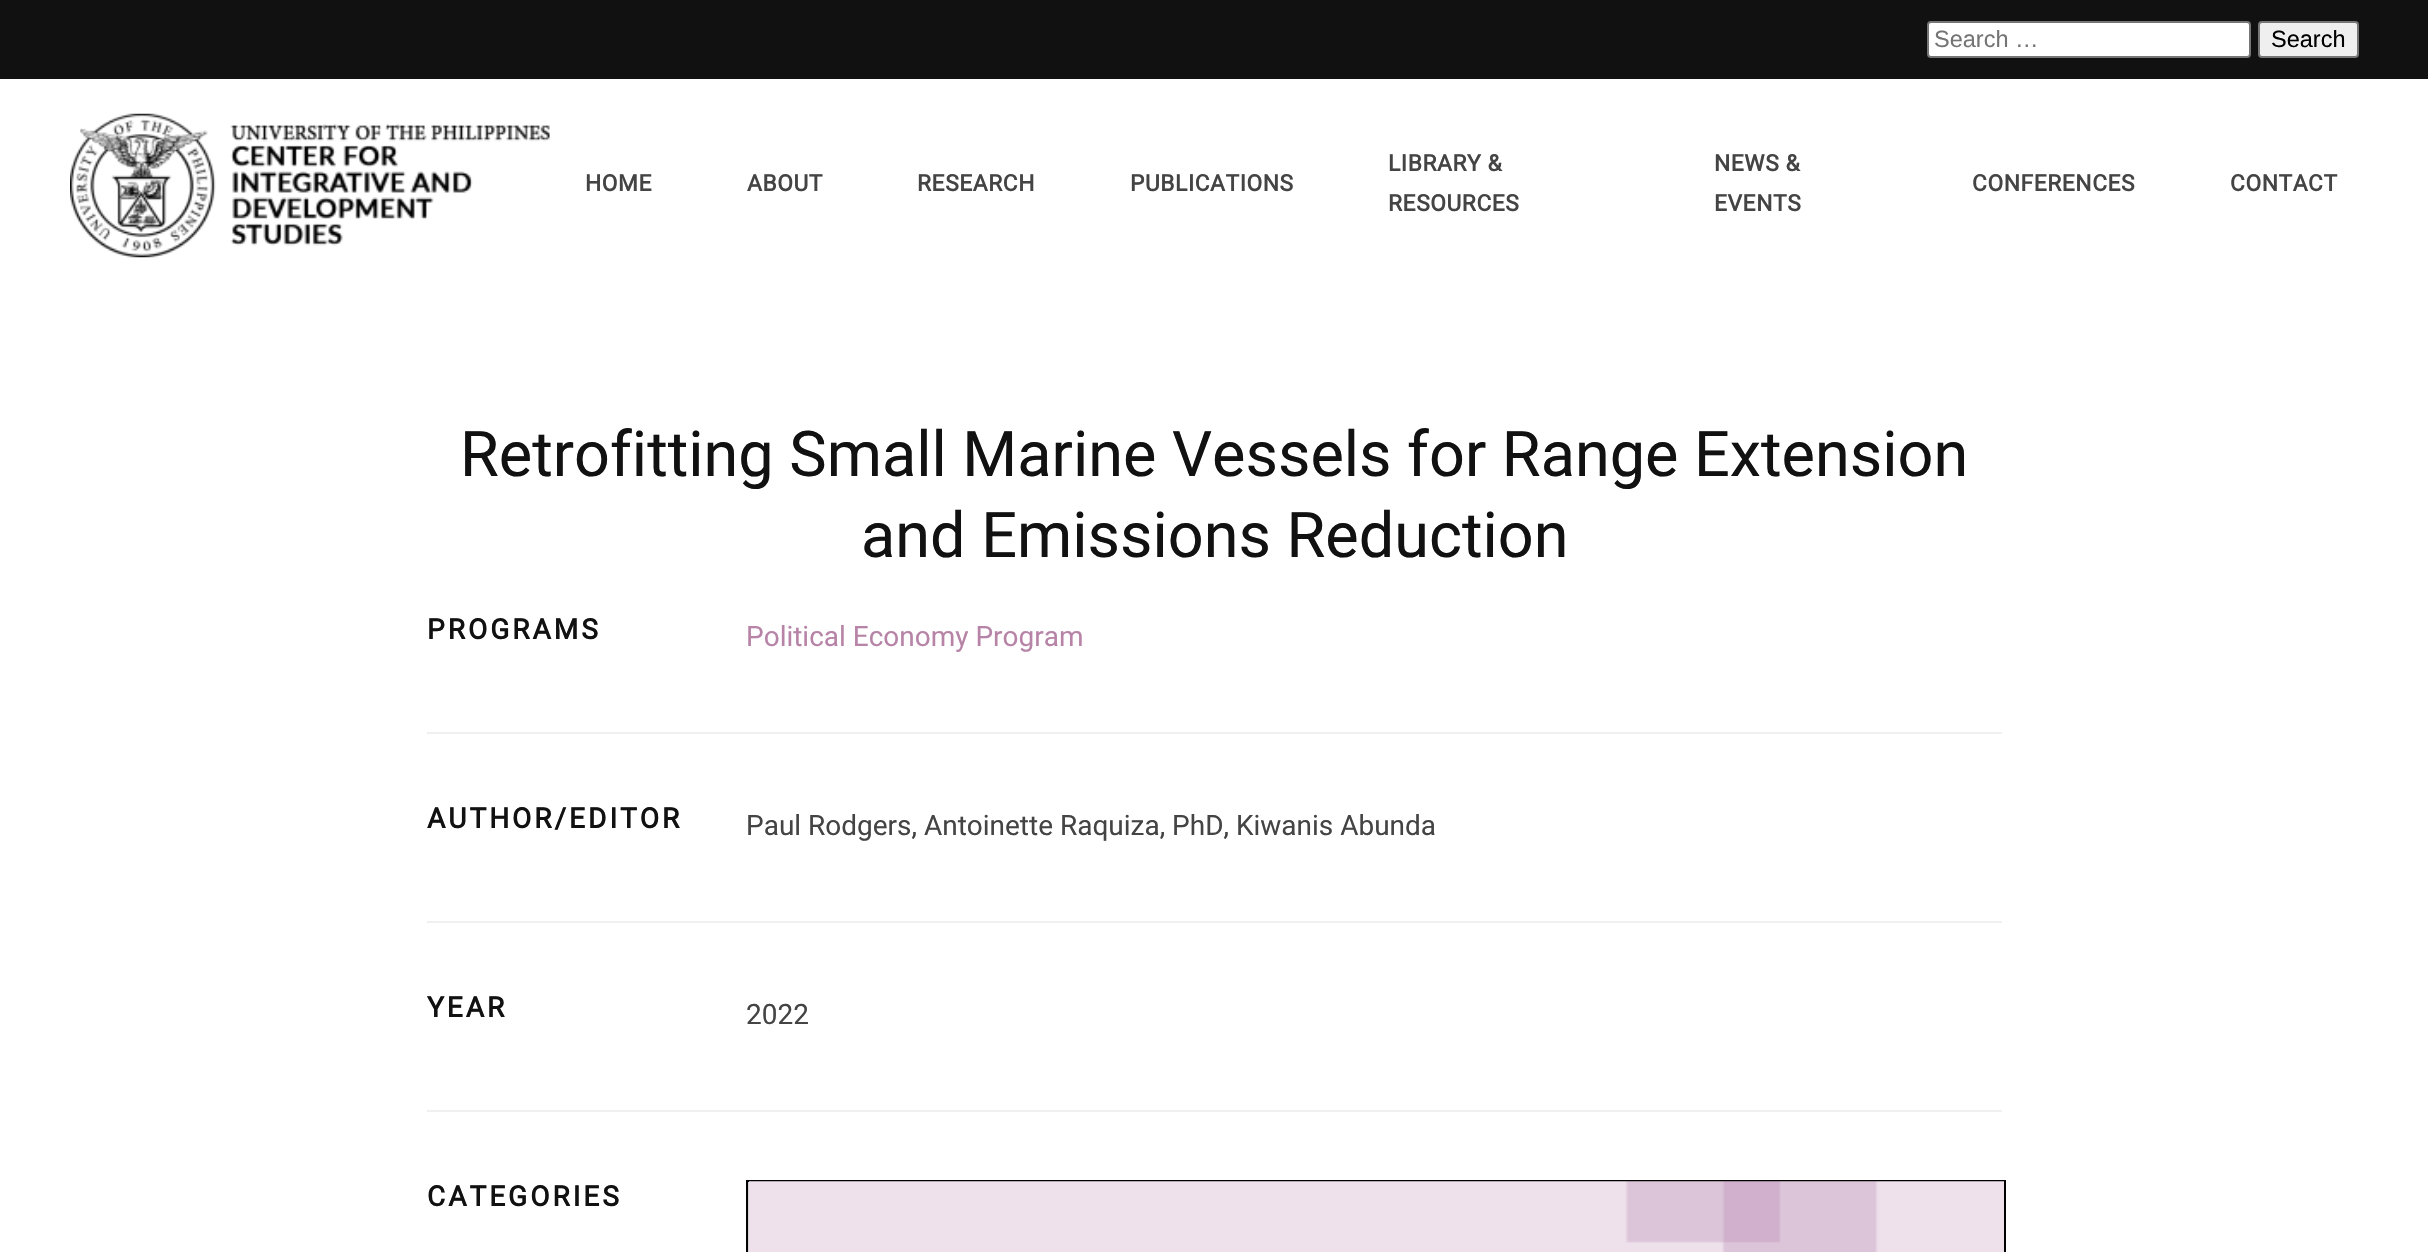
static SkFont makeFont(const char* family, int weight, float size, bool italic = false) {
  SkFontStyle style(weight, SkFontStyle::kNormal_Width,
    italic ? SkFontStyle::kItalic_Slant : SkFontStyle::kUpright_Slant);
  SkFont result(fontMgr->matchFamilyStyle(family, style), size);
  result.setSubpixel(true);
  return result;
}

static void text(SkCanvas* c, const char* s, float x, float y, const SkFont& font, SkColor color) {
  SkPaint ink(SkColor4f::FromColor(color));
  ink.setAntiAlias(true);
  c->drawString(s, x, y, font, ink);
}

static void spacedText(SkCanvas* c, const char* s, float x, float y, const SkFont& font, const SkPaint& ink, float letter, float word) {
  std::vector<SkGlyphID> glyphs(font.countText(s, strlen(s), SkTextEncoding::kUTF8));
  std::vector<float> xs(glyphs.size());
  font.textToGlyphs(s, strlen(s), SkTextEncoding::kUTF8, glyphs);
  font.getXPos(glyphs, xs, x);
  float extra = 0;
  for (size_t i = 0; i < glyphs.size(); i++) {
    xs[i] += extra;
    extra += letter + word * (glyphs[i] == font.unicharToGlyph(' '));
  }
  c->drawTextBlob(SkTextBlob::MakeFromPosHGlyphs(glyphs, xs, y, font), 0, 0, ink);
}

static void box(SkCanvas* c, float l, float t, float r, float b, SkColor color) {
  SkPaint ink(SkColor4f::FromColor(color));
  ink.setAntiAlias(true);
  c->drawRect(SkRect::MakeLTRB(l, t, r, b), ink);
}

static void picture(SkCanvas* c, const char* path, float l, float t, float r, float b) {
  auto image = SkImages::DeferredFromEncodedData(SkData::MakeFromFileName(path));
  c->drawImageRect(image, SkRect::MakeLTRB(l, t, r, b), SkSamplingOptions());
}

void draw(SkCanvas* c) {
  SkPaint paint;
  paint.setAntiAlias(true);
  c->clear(0xffffffff);
  box(c, 0, 0, 2428, 79, 0xff111111);
  paint.setColor(0xffffffff);
  c->drawRoundRect(SkRect::MakeLTRB(1928, 22, 2250, 57), 3, 3, paint);
  paint.setStyle(SkPaint::kStroke_Style);
  paint.setStrokeWidth(2);
  paint.setColor(0xff767676);
  c->drawRoundRect(SkRect::MakeLTRB(1928, 22, 2250, 57), 3, 3, paint);
  SkFont face1 = makeFont("Liberation Sans", 400, 23.5f);
  text(c, "Search …", 1934, 47, face1, 0xff757575);
  paint.setStyle(SkPaint::kFill_Style);
  paint.setColor(0xffefefef);
  c->drawRoundRect(SkRect::MakeLTRB(2259, 22, 2358, 57), 3, 3, paint);
  paint.setStyle(SkPaint::kStroke_Style);
  paint.setColor(0xff767676);
  c->drawRoundRect(SkRect::MakeLTRB(2259, 22, 2358, 57), 3, 3, paint);
  text(c, "Search", 2271, 47, face1, 0xff000000);
  picture(c, "img_01.png", 70, 113, 550, 258);
  SkFont face2 = makeFont("Roboto", 700, 22.75f);
  paint.setStyle(SkPaint::kFill_Style);
  paint.setColor(0xff444444);
  spacedText(c, "HOME", 585, 191, face2, paint, 0.6f, 0);
  spacedText(c, "ABOUT", 747, 191, face2, paint, 0.6f, 0);
  spacedText(c, "RESEARCH", 917, 191, face2, paint, 0.6f, 0);
  spacedText(c, "PUBLICATIONS", 1130, 191, face2, paint, 0.6f, 0);
  spacedText(c, "LIBRARY &", 1388, 171, face2, paint, 0.6f, 0);
  spacedText(c, "RESOURCES", 1388, 211, face2, paint, 0.6f, 0);
  spacedText(c, "NEWS &", 1714, 171, face2, paint, 0.6f, 0);
  spacedText(c, "EVENTS", 1714, 211, face2, paint, 0.6f, 0);
  spacedText(c, "CONFERENCES", 1972, 191, face2, paint, 0.6f, 0);
  spacedText(c, "CONTACT", 2230, 191, face2, paint, 0.6f, 0);
  SkFont face3 = makeFont("Roboto", 400, 63);
  text(c, "Retrofitting Small Marine Vessels for Range Extension", 460, 476, face3, 0xff111111);
  text(c, "and Emissions Reduction", 861, 557, face3, 0xff111111);
  SkFont face4 = makeFont("Roboto", 700, 28);
  paint.setColor(0xff111111);
  spacedText(c, "PROGRAMS", 427, 639, face4, paint, 3, 0);
  SkFont face5 = makeFont("Roboto", 400, 28);
  text(c, "Political Economy Program", 746, 646, face5, 0xffb784a7);
  box(c, 427, 732, 2002, 734, 0xfff0f0f0);
  spacedText(c, "AUTHOR/EDITOR", 427, 828, face4, paint, 3, 0);
  text(c, "Paul Rodgers, Antoinette Raquiza, PhD, Kiwanis Abunda", 746, 835, face5, 0xff444444);
  box(c, 427, 921, 2002, 923, 0xfff0f0f0);
  spacedText(c, "YEAR", 427, 1017, face4, paint, 3, 0);
  text(c, "2022", 746, 1024, face5, 0xff444444);
  box(c, 427, 1110, 2002, 1112, 0xfff0f0f0);
  spacedText(c, "CATEGORIES", 427, 1206, face4, paint, 3, 0);
  box(c, 748, 1182, 749, 1252, 0xffd3d3d3);
  paint.setStyle(SkPaint::kStroke_Style);
  paint.setColor(0xff000000);
  c->drawRect(SkRect::MakeLTRB(747, 1181, 2005, 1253), paint);
  picture(c, "img_02.png", 749, 1181, 2004, 1252);
}
